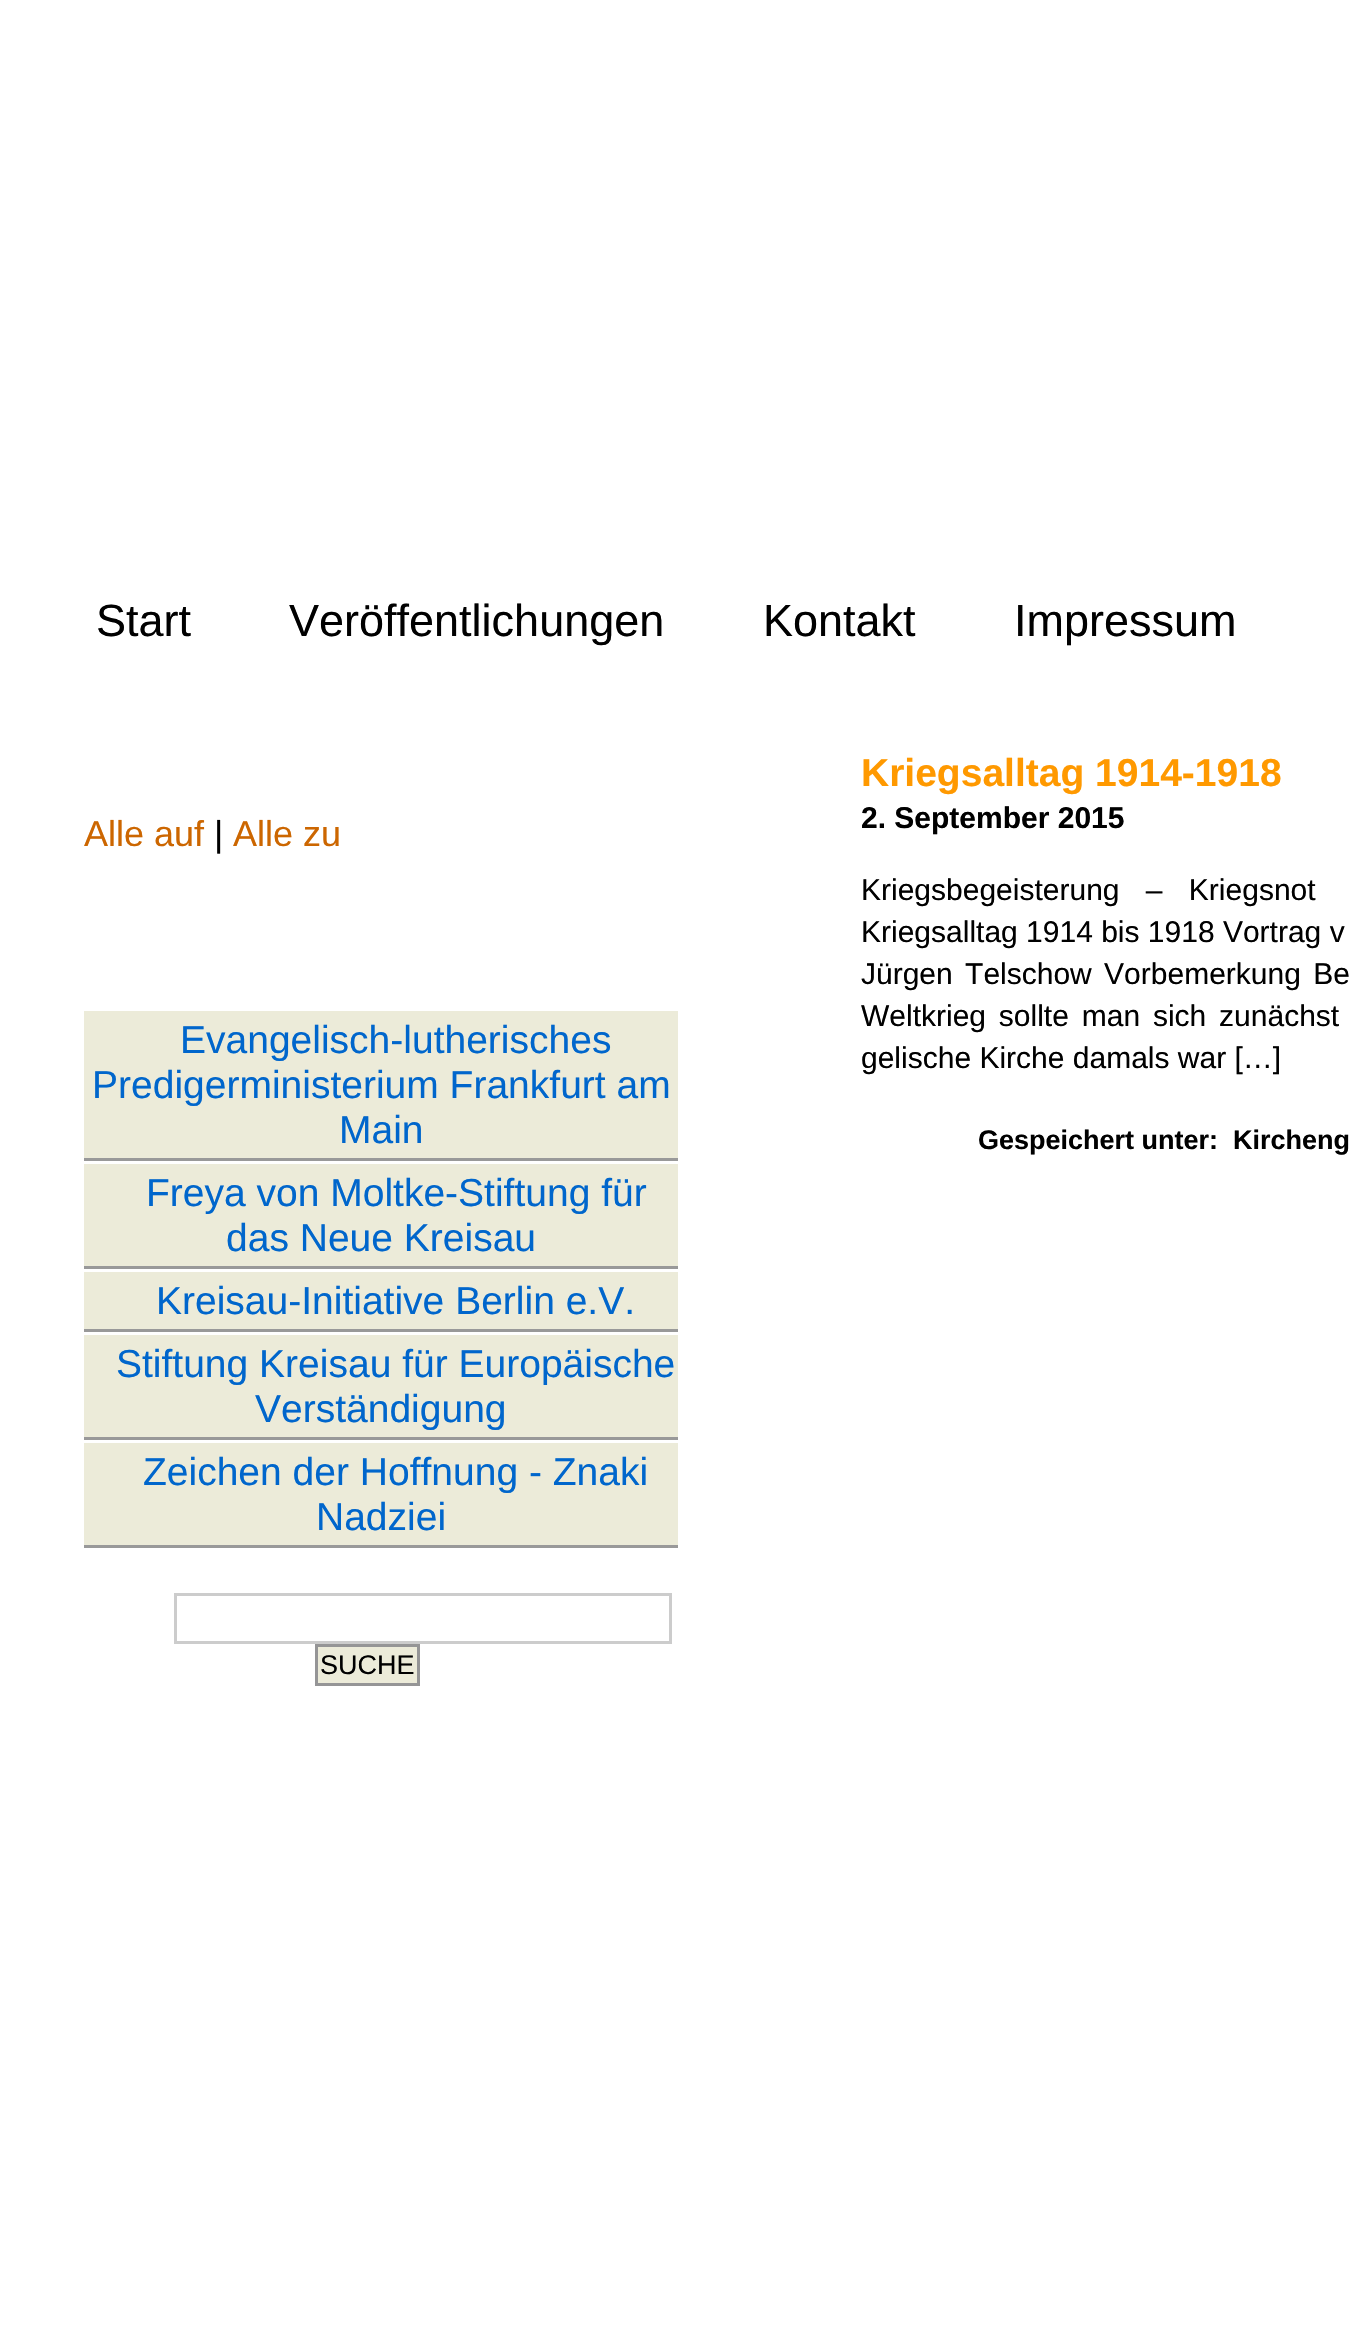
static SkFont makeFont(const char* family, int weight, float size, bool italic = false) {
  SkFontStyle style(weight, SkFontStyle::kNormal_Width,
    italic ? SkFontStyle::kItalic_Slant : SkFontStyle::kUpright_Slant);
  SkFont result(fontMgr->matchFamilyStyle(family, style), size);
  result.setSubpixel(true);
  return result;
}

static void text(SkCanvas* c, const char* s, float x, float y, const SkFont& font, SkColor color) {
  SkPaint ink(SkColor4f::FromColor(color));
  ink.setAntiAlias(true);
  c->drawString(s, x, y, font, ink);
}

static void spacedText(SkCanvas* c, const char* s, float x, float y, const SkFont& font, const SkPaint& ink, float letter, float word) {
  std::vector<SkGlyphID> glyphs(font.countText(s, strlen(s), SkTextEncoding::kUTF8));
  std::vector<float> xs(glyphs.size());
  font.textToGlyphs(s, strlen(s), SkTextEncoding::kUTF8, glyphs);
  font.getXPos(glyphs, xs, x);
  float extra = 0;
  for (size_t i = 0; i < glyphs.size(); i++) {
    xs[i] += extra;
    extra += letter + word * (glyphs[i] == font.unicharToGlyph(' '));
  }
  c->drawTextBlob(SkTextBlob::MakeFromPosHGlyphs(glyphs, xs, y, font), 0, 0, ink);
}

static void box(SkCanvas* c, float l, float t, float r, float b, SkColor color) {
  SkPaint ink(SkColor4f::FromColor(color));
  ink.setAntiAlias(true);
  c->drawRect(SkRect::MakeLTRB(l, t, r, b), ink);
}

void draw(SkCanvas* c) {
  SkPaint paint;
  paint.setAntiAlias(true);
  c->clear(0xffffffff);
  SkFont face1 = makeFont("Liberation Sans", 400, 45);
  text(c, "Start", 96, 636, face1, 0xff000000);
  text(c, "Veröffentlichungen", 289, 636, face1, 0xff000000);
  text(c, "Kontakt", 763, 636, face1, 0xff000000);
  text(c, "Impressum", 1014, 636, face1, 0xff000000);
  SkFont face2 = makeFont("Liberation Sans", 400, 36);
  text(c, "Alle auf", 84, 846, face2, 0xffcc6600);
  text(c, "|", 214, 846, face2, 0xff000000);
  text(c, "Alle zu", 233, 846, face2, 0xffcc6600);
  box(c, 84, 1011, 678, 1158, 0xffecebd9);
  box(c, 84, 1158, 678, 1161, 0xff999999);
  SkFont face3 = makeFont("Liberation Sans", 400, 39);
  text(c, "Evangelisch-lutherisches", 180, 1053, face3, 0xff0066cc);
  text(c, "Predigerministerium Frankfurt am", 92, 1098, face3, 0xff0066cc);
  text(c, "Main", 339, 1143, face3, 0xff0066cc);
  box(c, 84, 1164, 678, 1266, 0xffecebd9);
  box(c, 84, 1266, 678, 1269, 0xff999999);
  text(c, "Freya von Moltke-Stiftung für", 146, 1206, face3, 0xff0066cc);
  text(c, "das Neue Kreisau", 226, 1251, face3, 0xff0066cc);
  box(c, 84, 1272, 678, 1329, 0xffecebd9);
  box(c, 84, 1329, 678, 1332, 0xff999999);
  text(c, "Kreisau-Initiative Berlin e.V.", 156, 1314, face3, 0xff0066cc);
  box(c, 84, 1335, 678, 1437, 0xffecebd9);
  box(c, 84, 1437, 678, 1440, 0xff999999);
  text(c, "Stiftung Kreisau für Europäische", 116, 1377, face3, 0xff0066cc);
  text(c, "Verständigung", 255, 1422, face3, 0xff0066cc);
  box(c, 84, 1443, 678, 1545, 0xffecebd9);
  box(c, 84, 1545, 678, 1548, 0xff999999);
  text(c, "Zeichen der Hoffnung - Znaki", 143, 1485, face3, 0xff0066cc);
  text(c, "Nadziei", 316, 1530, face3, 0xff0066cc);
  paint.setStyle(SkPaint::kStroke_Style);
  paint.setStrokeWidth(3);
  paint.setColor(0xffcccccc);
  c->drawRect(SkRect::MakeLTRB(175.5f, 1594.5f, 670.5f, 1642.5f), paint);
  paint.setStyle(SkPaint::kFill_Style);
  paint.setColor(0xffecebd9);
  c->drawRect(SkRect::MakeLTRB(316.5f, 1645.5f, 418.5f, 1684.5f), paint);
  paint.setStyle(SkPaint::kStroke_Style);
  paint.setColor(0xff959596);
  c->drawRect(SkRect::MakeLTRB(316.5f, 1645.5f, 418.5f, 1684.5f), paint);
  SkFont face4 = makeFont("Liberation Sans", 400, 27);
  text(c, "SUCHE", 320, 1674, face4, 0xff000000);
  SkFont face5 = makeFont("Liberation Sans", 700, 39);
  text(c, "Kriegsalltag 1914-1918", 861, 786, face5, 0xffff9900);
  SkFont face6 = makeFont("Liberation Sans", 700, 30);
  text(c, "2. September 2015", 861, 828, face6, 0xff000000);
  SkFont face7 = makeFont("Liberation Sans", 400, 30);
  paint.setStyle(SkPaint::kFill_Style);
  paint.setColor(0xff000000);
  spacedText(c, "Kriegsbegeisterung – Kriegsnot", 861, 900, face7, paint, 0, 18);
  text(c, "Kriegsalltag 1914 bis 1918 Vortrag v", 861, 942, face7, 0xff000000);
  spacedText(c, "Jürgen Telschow Vorbemerkung Be", 861, 984, face7, paint, 0, 4);
  spacedText(c, "Weltkrieg sollte man sich zunächst", 861, 1026, face7, paint, 0, 4.5f);
  text(c, "gelische Kirche damals war […]", 861, 1068, face7, 0xff000000);
  SkFont face8 = makeFont("Liberation Sans", 700, 27);
  text(c, "Gespeichert unter:", 978, 1149, face8, 0xff000000);
  text(c, "Kircheng", 1233, 1149, face8, 0xff000000);
}
